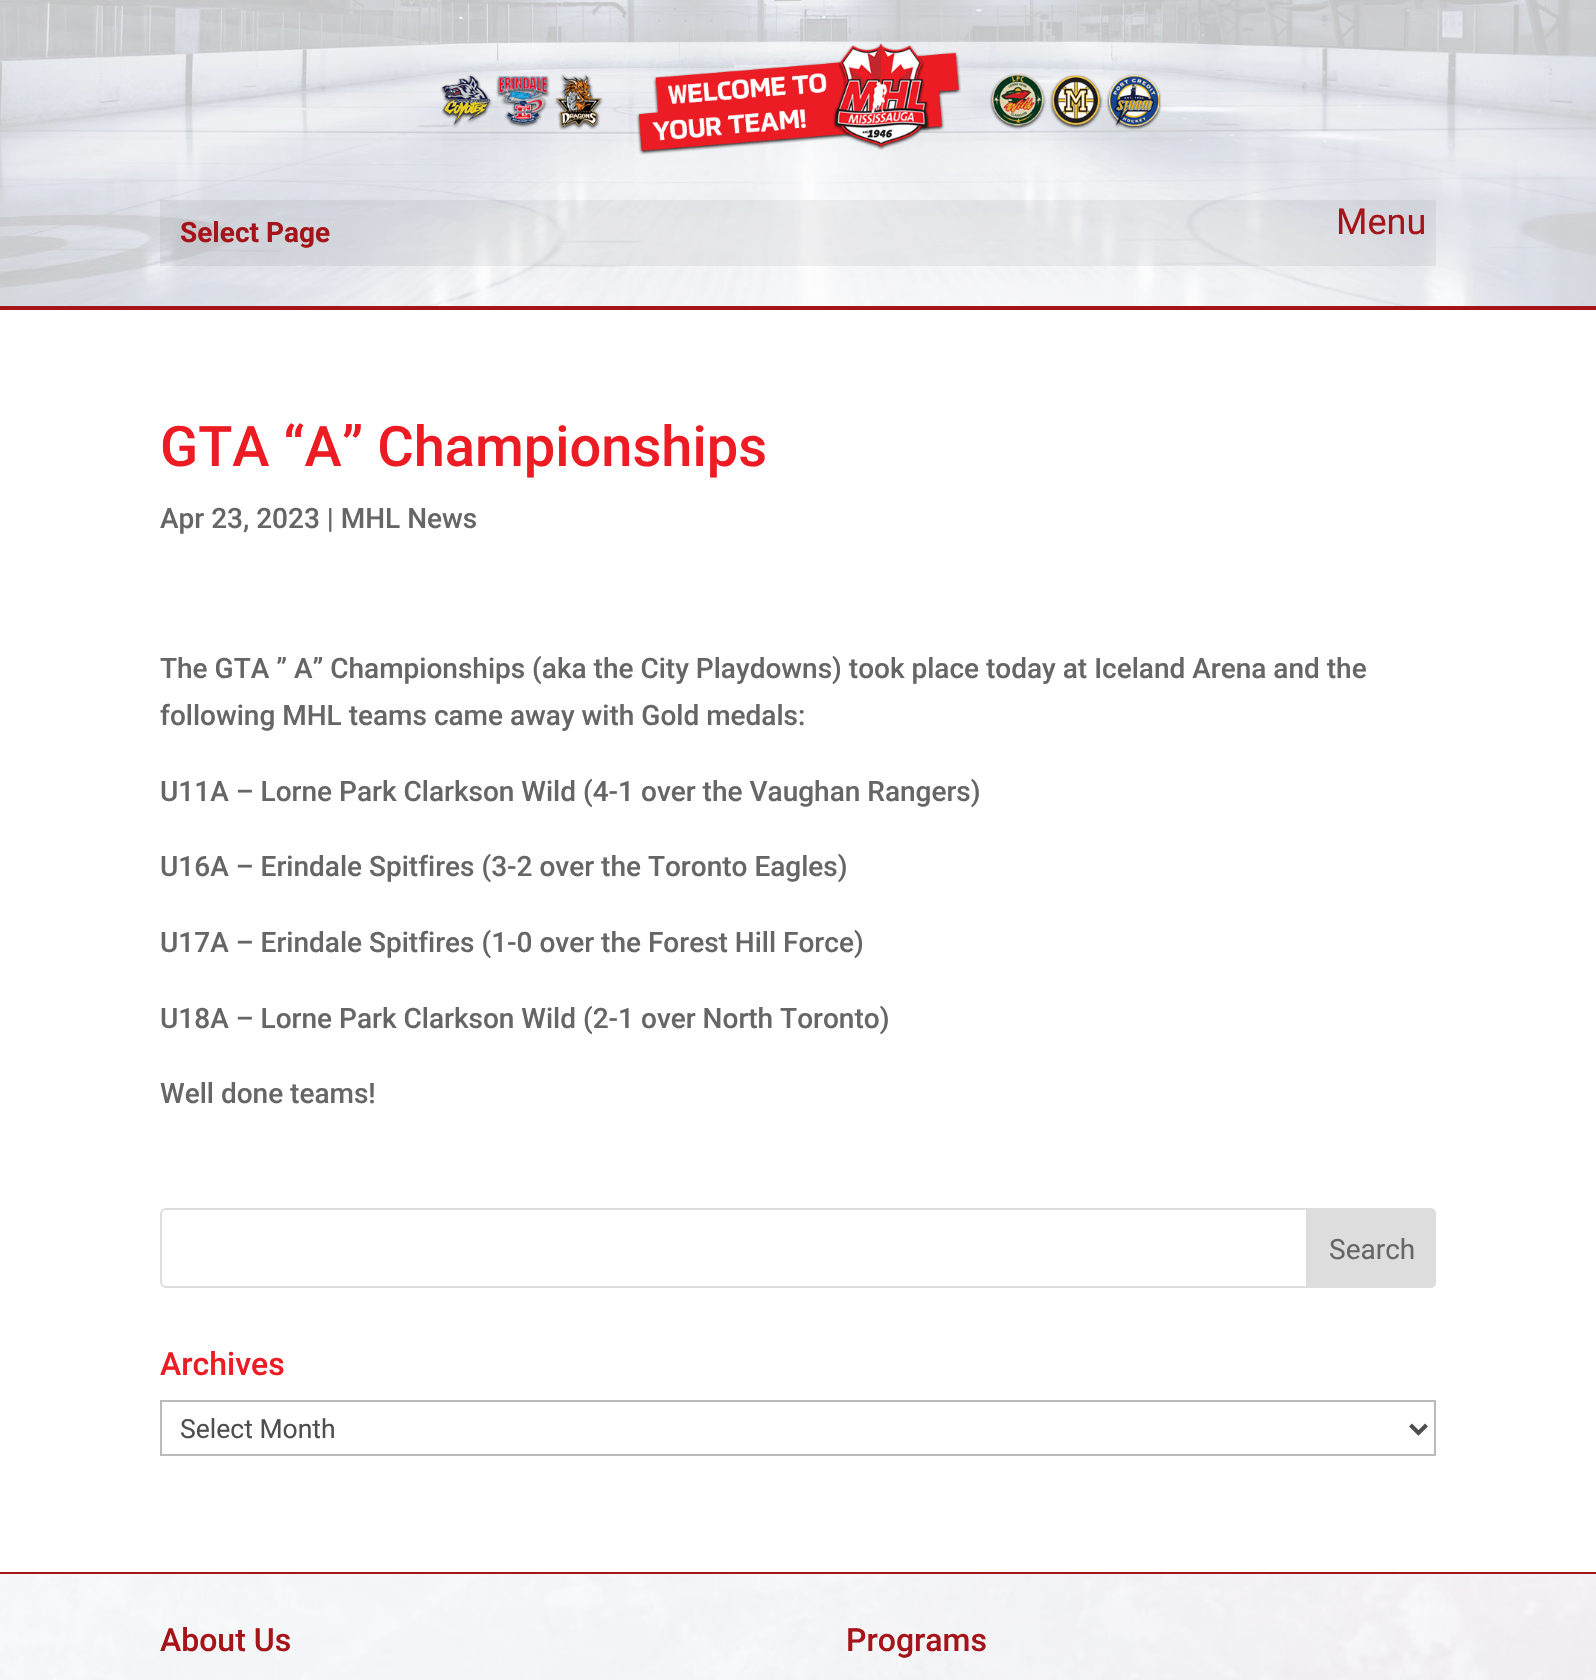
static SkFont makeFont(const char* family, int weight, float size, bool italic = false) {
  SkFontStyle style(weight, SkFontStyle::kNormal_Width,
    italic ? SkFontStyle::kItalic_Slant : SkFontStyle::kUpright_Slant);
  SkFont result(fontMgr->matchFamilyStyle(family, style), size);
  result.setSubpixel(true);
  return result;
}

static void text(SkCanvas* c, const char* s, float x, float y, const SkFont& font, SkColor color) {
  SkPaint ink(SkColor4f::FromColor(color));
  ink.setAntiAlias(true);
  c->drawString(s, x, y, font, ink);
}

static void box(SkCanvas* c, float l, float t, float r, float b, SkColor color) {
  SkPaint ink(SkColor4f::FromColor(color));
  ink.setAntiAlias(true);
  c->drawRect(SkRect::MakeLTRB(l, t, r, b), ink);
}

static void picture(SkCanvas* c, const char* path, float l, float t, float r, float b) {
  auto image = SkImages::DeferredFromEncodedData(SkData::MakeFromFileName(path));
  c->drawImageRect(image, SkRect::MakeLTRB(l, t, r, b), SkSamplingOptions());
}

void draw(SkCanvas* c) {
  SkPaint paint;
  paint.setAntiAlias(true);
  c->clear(0xffffffff);
  picture(c, "img_01.png", 0, 1574, 1596, 1680);
  box(c, 0, 306, 1596, 310, 0xffa51419);
  picture(c, "img_02.png", 0, 0, 1596, 306);
  picture(c, "img_03.png", 440, 43, 1162, 155);
  box(c, 160, 200, 1436, 266, 0x0d000000);
  SkFont face1 = makeFont("Roboto", 700, 28);
  text(c, "Select Page", 180, 242, face1, 0xffa51419);
  SkFont face2 = makeFont("Roboto", 400, 36);
  text(c, "Menu", 1336, 234, face2, 0xffa51419);
  SkFont face3 = makeFont("Roboto", 500, 56);
  text(c, "GTA “A” Championships", 160, 466, face3, 0xffed1c24);
  SkFont face4 = makeFont("Roboto", 500, 28);
  text(c, "Apr 23, 2023 | MHL News", 160, 528, face4, 0xff666666);
  text(c, "The GTA ” A” Championships (aka the City Playdowns) took place today at Iceland Arena and the", 160, 678, face4, 0xff666666);
  text(c, "following MHL teams came away with Gold medals:", 160, 725, face4, 0xff666666);
  text(c, "U11A – Lorne Park Clarkson Wild (4-1 over the Vaughan Rangers)", 160, 801, face4, 0xff666666);
  text(c, "U16A – Erindale Spitfires (3-2 over the Toronto Eagles)", 160, 876, face4, 0xff666666);
  text(c, "U17A – Erindale Spitfires (1-0 over the Forest Hill Force)", 160, 952, face4, 0xff666666);
  text(c, "U18A – Lorne Park Clarkson Wild (2-1 over North Toronto)", 160, 1028, face4, 0xff666666);
  text(c, "Well done teams!", 160, 1103, face4, 0xff666666);
  paint.setStyle(SkPaint::kStroke_Style);
  paint.setStrokeWidth(2);
  paint.setColor(0xffdddddd);
  c->drawRoundRect(SkRect::MakeLTRB(161, 1209, 1435, 1287), 5, 5, paint);
  paint.setStyle(SkPaint::kFill_Style);
  c->drawPath(SkPathBuilder().moveTo(1307, 1209).lineTo(1430, 1209).cubicTo(1433, 1209, 1435, 1211, 1435, 1214).lineTo(1435, 1282).cubicTo(1435, 1285, 1433, 1287, 1430, 1287).lineTo(1307, 1287).close().detach(), paint);
  paint.setStyle(SkPaint::kStroke_Style);
  c->drawPath(SkPathBuilder().moveTo(1307, 1209).lineTo(1430, 1209).cubicTo(1433, 1209, 1435, 1211, 1435, 1214).lineTo(1435, 1282).cubicTo(1435, 1285, 1433, 1287, 1430, 1287).lineTo(1307, 1287).close().detach(), paint);
  SkFont face5 = makeFont("Roboto", 400, 28);
  text(c, "Search", 1329, 1259, face5, 0xff666666);
  SkFont face6 = makeFont("Roboto", 500, 32);
  text(c, "Archives", 160, 1375, face6, 0xffed1c24);
  paint.setColor(0xffbbbbbb);
  c->drawRect(SkRect::MakeLTRB(161, 1401, 1435, 1455), paint);
  paint.setStrokeWidth(4);
  paint.setColor(0xff4e4e4e);
  c->drawPath(SkPathBuilder().moveTo(1410.5f, 1425).lineTo(1418.5f, 1433).lineTo(1426.5f, 1425).detach(), paint);
  SkFont face7 = makeFont("Roboto", 400, 26.5f);
  text(c, "Select Month", 180, 1438, face7, 0xff4e4e4e);
  box(c, 0, 1574, 1596, 1680, 0x8fffffff);
  box(c, 0, 1572, 1596, 1574, 0xffa51419);
  text(c, "About Us", 160, 1651, face6, 0xffa51419);
  text(c, "Programs", 846, 1651, face6, 0xffa51419);
}
